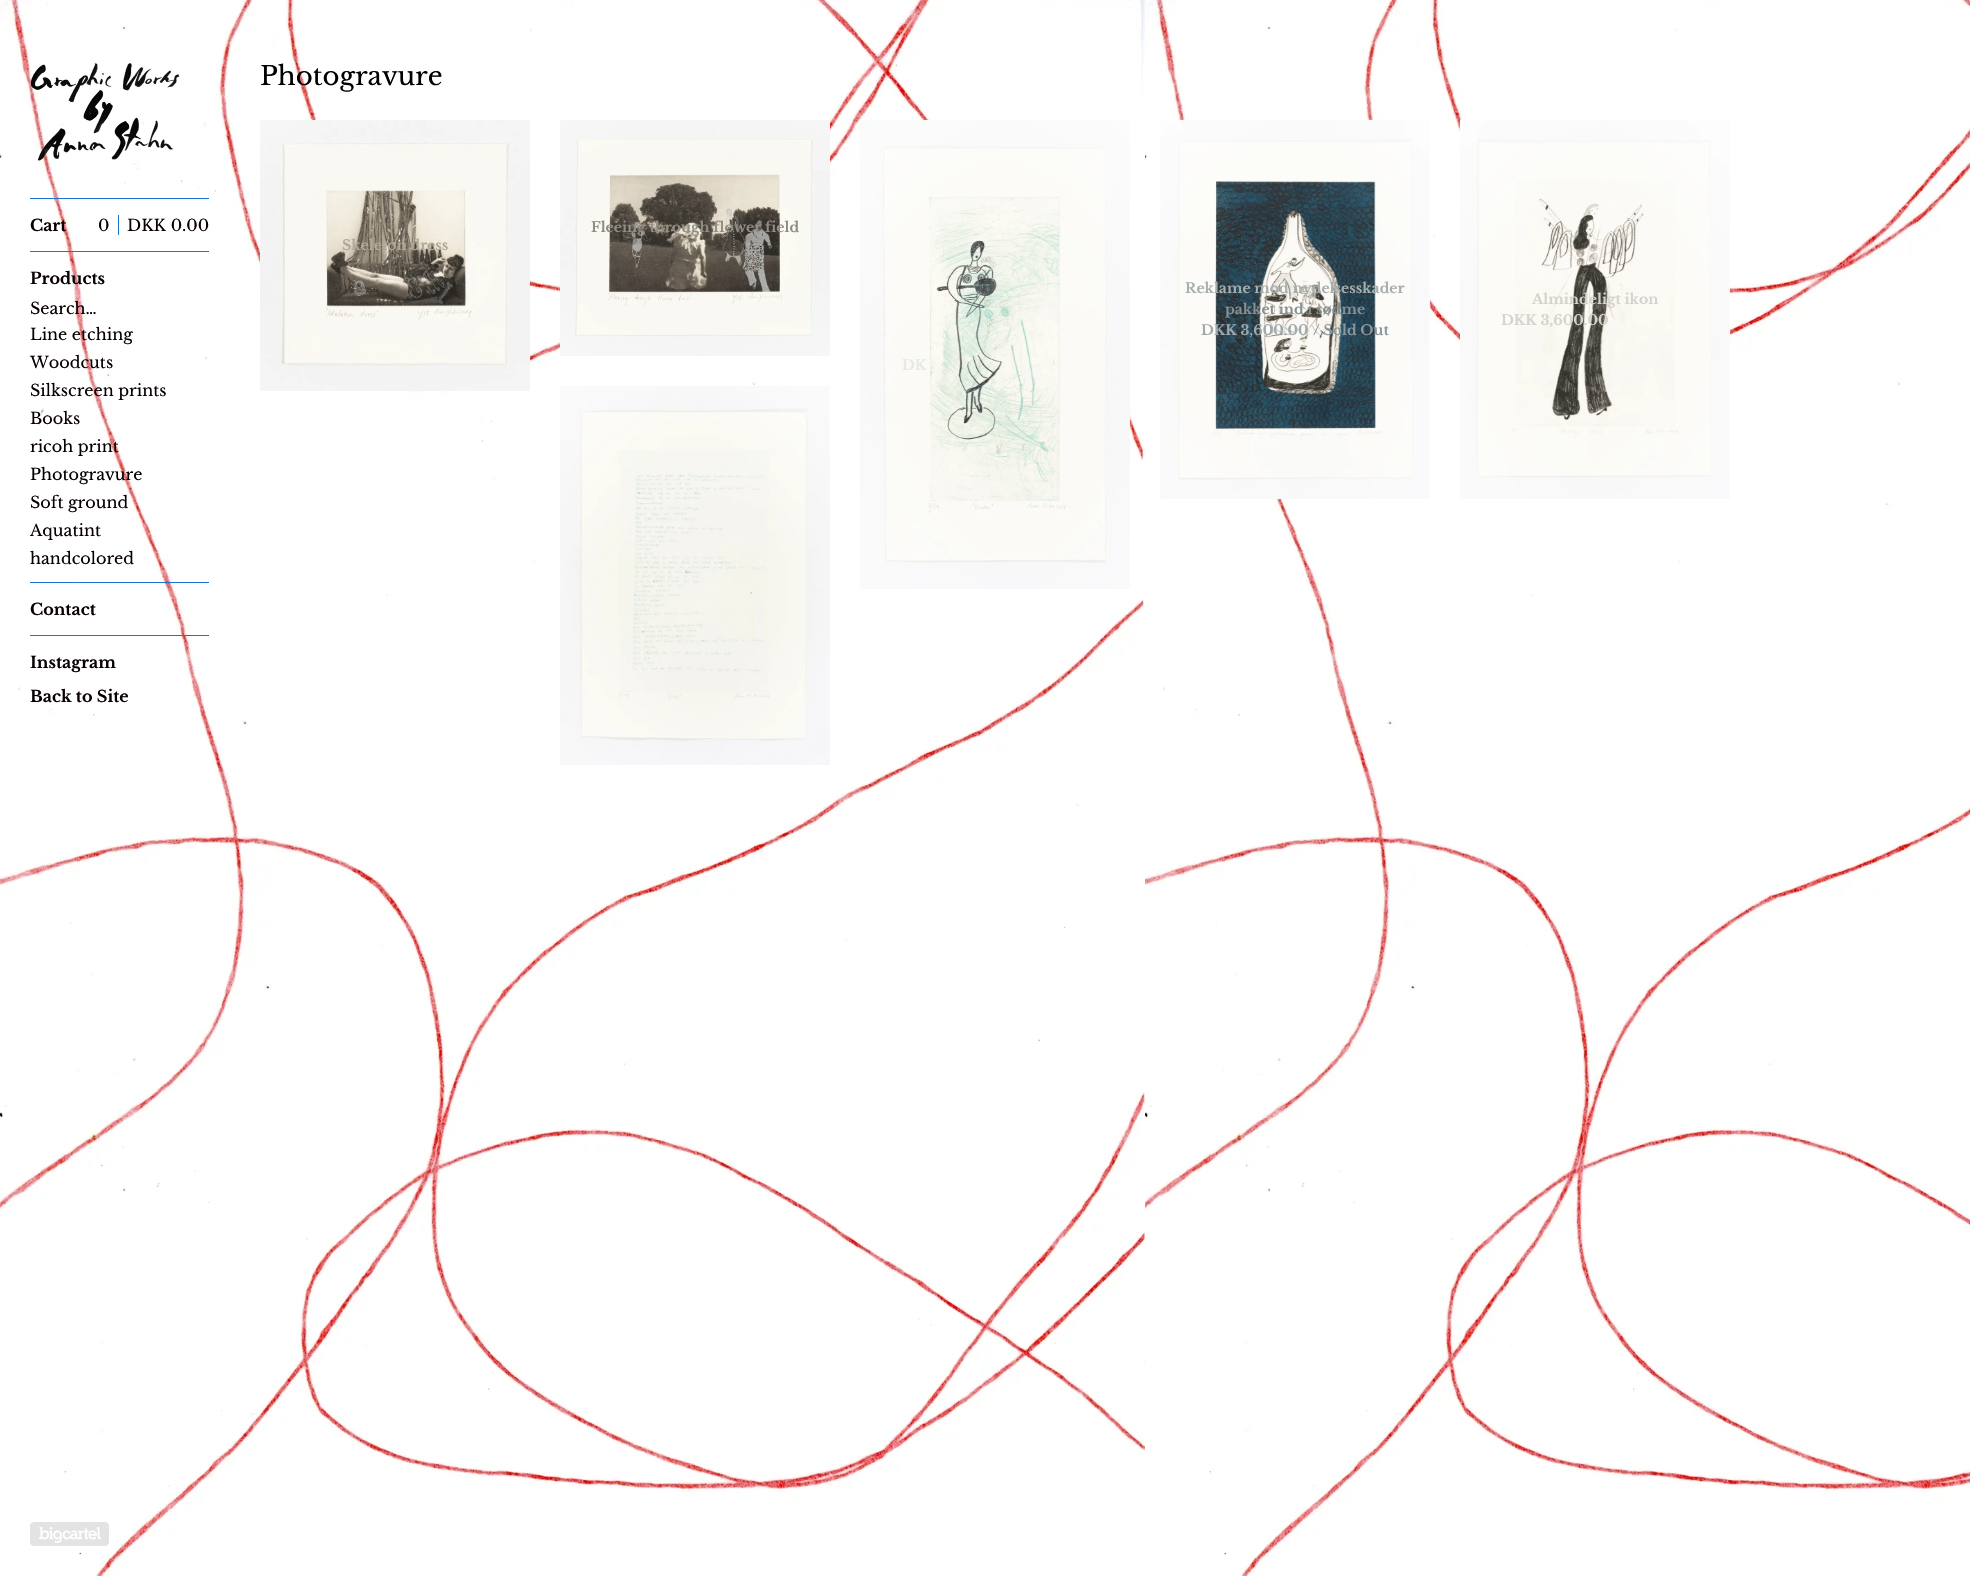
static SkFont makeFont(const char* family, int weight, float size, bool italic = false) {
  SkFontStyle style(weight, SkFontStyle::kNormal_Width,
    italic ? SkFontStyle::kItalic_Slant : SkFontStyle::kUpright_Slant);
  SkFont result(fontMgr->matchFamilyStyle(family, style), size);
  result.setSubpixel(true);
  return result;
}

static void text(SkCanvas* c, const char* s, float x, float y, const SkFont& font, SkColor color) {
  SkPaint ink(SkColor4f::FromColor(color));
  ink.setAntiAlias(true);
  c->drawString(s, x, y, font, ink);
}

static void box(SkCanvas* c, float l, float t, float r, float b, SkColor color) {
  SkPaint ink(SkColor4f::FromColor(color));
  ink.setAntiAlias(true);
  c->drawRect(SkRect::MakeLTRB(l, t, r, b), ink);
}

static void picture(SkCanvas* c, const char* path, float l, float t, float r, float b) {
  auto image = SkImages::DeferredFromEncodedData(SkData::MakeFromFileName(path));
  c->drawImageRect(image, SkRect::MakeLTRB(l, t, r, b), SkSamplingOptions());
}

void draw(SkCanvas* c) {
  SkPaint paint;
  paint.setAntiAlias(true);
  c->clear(0xffffffff);
  picture(c, "img_01.png", 0, 0, 1970, 1576);
  picture(c, "img_02.png", 30, 60, 180, 163);
  box(c, 30, 198, 209, 199, 0xff1974d2);
  SkFont face1 = makeFont("Libre Baskerville", 700, 16);
  text(c, "Cart", 30, 231, face1, 0xff090101);
  SkFont face2 = makeFont("Libre Baskerville", 400, 16);
  text(c, "0", 98, 231, face2, 0xff090101);
  box(c, 118, 215, 119, 235, 0xff1974d2);
  text(c, "DKK 0.00", 127, 231, face2, 0xff090101);
  box(c, 30, 251, 209, 252, 0xff1974d2);
  text(c, "Products", 30, 284, face1, 0xff090101);
  text(c, "Search…", 30, 314, face2, 0xff090101);
  text(c, "Line etching", 30, 340, face2, 0xff090101);
  text(c, "Woodcuts", 30, 368, face2, 0xff090101);
  text(c, "Silkscreen prints", 30, 396, face2, 0xff090101);
  text(c, "Books", 30, 424, face2, 0xff090101);
  text(c, "ricoh print", 30, 452, face2, 0xff090101);
  text(c, "Photogravure", 30, 480, face2, 0xff000000);
  text(c, "Soft ground", 30, 508, face2, 0xff090101);
  text(c, "Aquatint", 30, 536, face2, 0xff090101);
  text(c, "handcolored", 30, 564, face2, 0xff090101);
  box(c, 30, 582, 209, 583, 0xff1974d2);
  text(c, "Contact", 30, 615, face1, 0xff090101);
  box(c, 30, 635, 209, 636, 0xff1974d2);
  text(c, "Instagram", 30, 668, face1, 0xff090101);
  text(c, "Back to Site", 30, 702, face1, 0xff090101);
  picture(c, "img_03.png", 30, 1522, 109, 1546);
  SkFont face3 = makeFont("Libre Baskerville", 400, 26);
  text(c, "Photogravure", 260, 85, face3, 0xff000000);
  picture(c, "img_04.png", 560, 120, 830, 356);
  SkFont face4 = makeFont("Libre Baskerville", 700, 14);
  text(c, "Fleeing through flower field", 591, 232, face4, 0xff928d84);
  picture(c, "img_05.png", 260, 120, 530, 391);
  text(c, "Skeleton dress", 342, 250, face4, 0xffb2a899);
  picture(c, "img_06.png", 1160, 120, 1430, 499);
  text(c, "Reklame mod nydelsesskader", 1185, 293, face4, 0xffa7aeae);
  text(c, "pakket ind i sødme", 1225, 314, face4, 0xff868f91);
  text(c, "DKK 3,600.00", 1201, 335, face4, 0xff9fa9ab);
  text(c, "/ Sold Out", 1313, 335, face4, 0xff8a989d);
  picture(c, "img_07.png", 1460, 120, 1730, 499);
  text(c, "Almindeligt ikon", 1532, 304, face4, 0xffd5d3cd);
  text(c, "DKK 3,600.00", 1501, 325, face4, 0xffd5d3cd);
  picture(c, "img_08.png", 860, 120, 1130, 589);
  text(c, "DK", 902, 370, face4, 0xffe7eae2);
  picture(c, "img_09.png", 560, 386, 830, 765);
}
